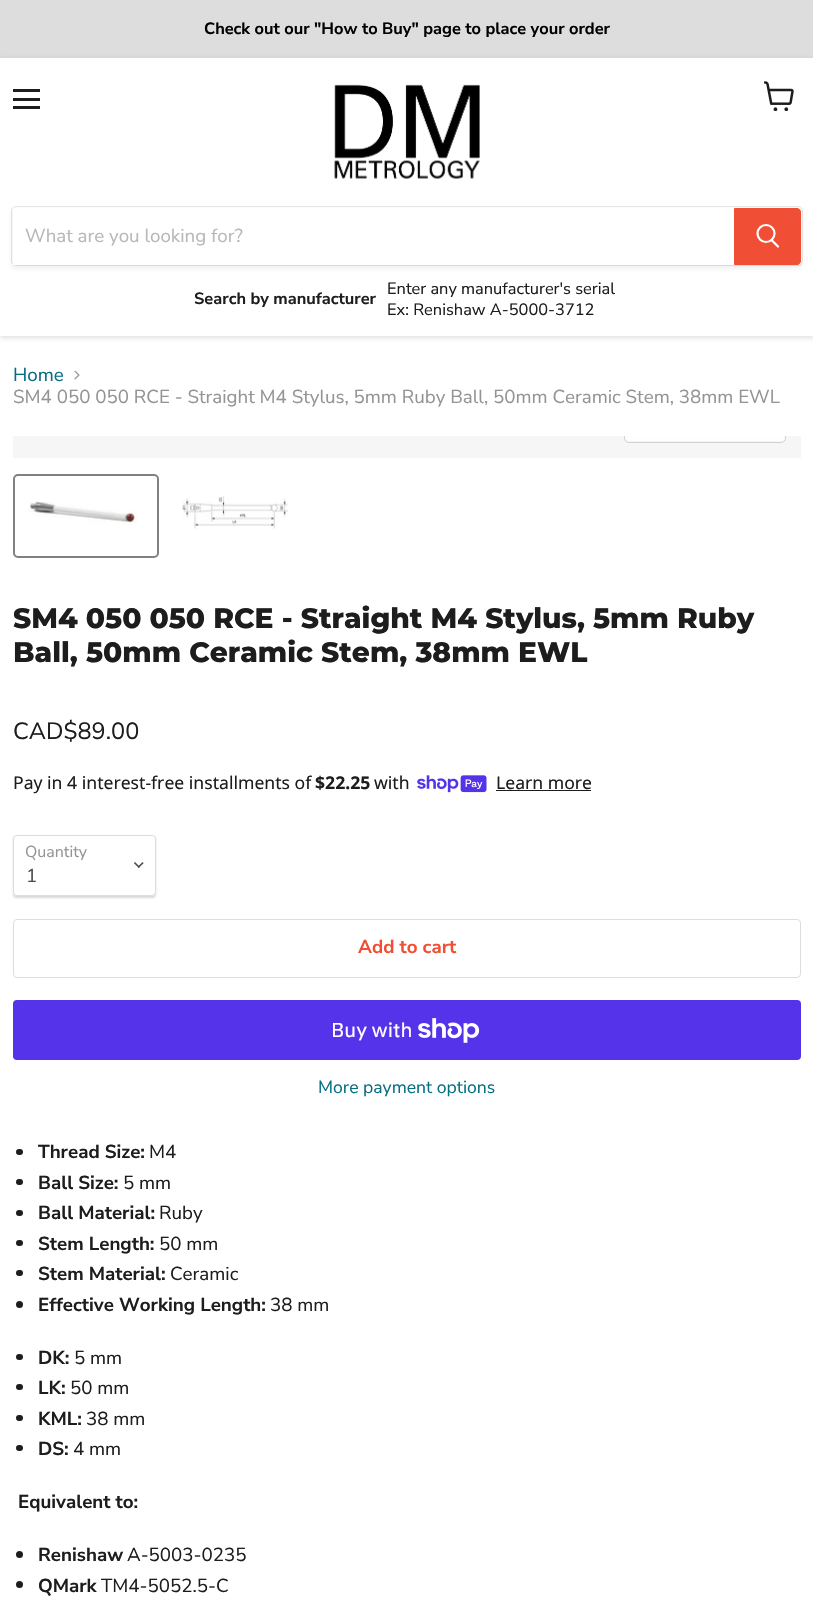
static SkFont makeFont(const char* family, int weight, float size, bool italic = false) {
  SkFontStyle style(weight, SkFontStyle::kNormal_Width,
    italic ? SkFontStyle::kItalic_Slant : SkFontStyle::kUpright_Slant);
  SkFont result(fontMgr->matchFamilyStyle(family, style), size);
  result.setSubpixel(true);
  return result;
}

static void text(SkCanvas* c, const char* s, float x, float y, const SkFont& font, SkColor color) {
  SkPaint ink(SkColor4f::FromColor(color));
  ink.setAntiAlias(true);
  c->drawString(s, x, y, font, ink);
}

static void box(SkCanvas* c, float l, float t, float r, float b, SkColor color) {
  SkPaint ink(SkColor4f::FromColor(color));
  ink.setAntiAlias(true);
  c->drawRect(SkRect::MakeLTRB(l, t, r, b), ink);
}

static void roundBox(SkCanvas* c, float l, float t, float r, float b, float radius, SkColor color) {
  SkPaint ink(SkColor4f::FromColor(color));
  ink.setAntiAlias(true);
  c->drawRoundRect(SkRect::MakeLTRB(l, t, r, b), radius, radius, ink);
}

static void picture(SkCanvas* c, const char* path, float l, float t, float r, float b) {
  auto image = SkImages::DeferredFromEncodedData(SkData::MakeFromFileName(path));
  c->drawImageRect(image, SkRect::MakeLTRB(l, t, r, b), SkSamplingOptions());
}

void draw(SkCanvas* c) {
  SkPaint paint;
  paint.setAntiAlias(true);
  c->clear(0xffffffff);
  box(c, 0, 0, 813, 58, 0xffdddddd);
  SkFont face1 = makeFont("Nunito Sans", 700, 16.4f);
  text(c, "Check out our \"How to Buy\" page to place your order", 204, 34, face1, 0xff000000);
  paint.setColor(0x40808080);
  paint.setMaskFilter(SkMaskFilter::MakeBlur(kNormal_SkBlurStyle, 2.5f));
  c->drawRect(SkRect::MakeLTRB(0, 59, 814, 338), paint);
  paint.setMaskFilter(nullptr);
  box(c, 0, 58, 813, 336, 0xffffffff);
  box(c, 13, 89, 40, 92, 0xff1d1d1d);
  box(c, 13, 98, 40, 101, 0xff1d1d1d);
  box(c, 13, 106, 40, 109, 0xff1d1d1d);
  picture(c, "img_01.png", 764, 81, 794, 111);
  picture(c, "img_02.png", 334, 84, 480, 179);
  paint.setColor(0x1c808080);
  paint.setMaskFilter(SkMaskFilter::MakeBlur(kNormal_SkBlurStyle, 2));
  c->drawRoundRect(SkRect::MakeLTRB(11, 209, 803, 269), 5, 5, paint);
  paint.setMaskFilter(nullptr);
  paint.setStyle(SkPaint::kStroke_Style);
  paint.setStrokeWidth(1);
  paint.setColor(0x33808080);
  c->drawRoundRect(SkRect::MakeLTRB(11.5f, 206.5f, 802.5f, 265.5f), 4.5f, 4.5f, paint);
  box(c, 13, 208, 734, 265, 0xffffffff);
  SkFont face2 = makeFont("Nunito Sans", 400, 18.75f);
  text(c, "What are you looking for?", 25, 242, face2, 0xffb8b8b8);
  paint.setStyle(SkPaint::kFill_Style);
  paint.setColor(0xfff04f36);
  c->drawPath(SkPathBuilder().moveTo(734.5f, 208.5f).lineTo(797, 208.5f).cubicTo(799, 208.5f, 800.5f, 210, 800.5f, 212).lineTo(800.5f, 261).cubicTo(800.5f, 263, 799, 264.5f, 797, 264.5f).lineTo(734.5f, 264.5f).close().detach(), paint);
  paint.setStyle(SkPaint::kStroke_Style);
  c->drawPath(SkPathBuilder().moveTo(734.5f, 208.5f).lineTo(797, 208.5f).cubicTo(799, 208.5f, 800.5f, 210, 800.5f, 212).lineTo(800.5f, 261).cubicTo(800.5f, 263, 799, 264.5f, 797, 264.5f).lineTo(734.5f, 264.5f).close().detach(), paint);
  paint.setStrokeWidth(2.2f);
  paint.setStrokeCap(SkPaint::kRound_Cap);
  paint.setColor(0xffffffff);
  c->drawPath(SkPathBuilder().moveTo(778, 246.5f).lineTo(772, 240.5f).detach(), paint);
  paint.setStrokeCap(SkPaint::kButt_Cap);
  c->drawCircle(766, 233.5f, 8.5f, paint);
  text(c, "Search by manufacturer", 194, 304, face1, 0xff1d1d1d);
  SkFont face3 = makeFont("Nunito Sans", 400, 16.4f);
  text(c, "Enter any manufacturer's serial", 387, 294, face3, 0xff1d1d1d);
  text(c, "Ex: Renishaw A-5000-3712", 387, 315, face3, 0xff1d1d1d);
  text(c, "Home", 13, 381, face2, 0xff046e82);
  picture(c, "img_03.png", 74, 370, 80, 380);
  text(c, "SM4 050 050 RCE - Straight M4 Stylus, 5mm Ruby Ball, 50mm Ceramic Stem, 38mm EWL", 13, 403, face2, 0xff949494);
  box(c, 13, 436, 801, 458, 0xfff6f6f6);
  c->save();
  c->clipRect(SkRect::MakeLTRB(13, 436, 801, 458));
  paint.setStrokeWidth(1);
  paint.setColor(0xffd1d1d1);
  c->drawRoundRect(SkRect::MakeLTRB(624.5f, 406.5f, 785.5f, 442.5f), 4.5f, 4.5f, paint);
  c->restore();
  paint.setStyle(SkPaint::kFill_Style);
  paint.setColor(0xfffefefe);
  c->drawPath(SkPathBuilder().moveTo(625, 436).lineTo(785, 436).lineTo(785, 437).cubicTo(785, 439, 783, 441, 781, 441).lineTo(629, 441).cubicTo(627, 441, 625, 439, 625, 437).close().detach(), paint);
  paint.setStyle(SkPaint::kStroke_Style);
  paint.setStrokeWidth(2);
  paint.setColor(0xff818181);
  c->drawRoundRect(SkRect::MakeLTRB(14, 475, 158, 557), 4, 4, paint);
  picture(c, "img_04.png", 28, 501, 137, 525);
  picture(c, "img_05.png", 182, 496, 288, 529);
  SkFont face4 = makeFont("Montserrat", 800, 28.1f);
  text(c, "SM4 050 050 RCE - Straight M4 Stylus, 5mm Ruby", 13, 628, face4, 0xff1d1d1d);
  text(c, "Ball, 50mm Ceramic Stem, 38mm EWL", 13, 662, face4, 0xff1d1d1d);
  SkFont face5 = makeFont("Nunito Sans", 400, 23.5f);
  text(c, "CAD$89.00", 13, 739, face5, 0xff1d1d1d);
  SkFont face6 = makeFont("Noto Sans", 400, 17.6f);
  text(c, "Pay in 4 interest-free installments of", 13, 789, face6, 0xff1d1d1d);
  SkFont face7 = makeFont("Noto Sans", 700, 17.6f);
  text(c, "$22.25", 315, 789, face7, 0xff1d1d1d);
  text(c, "with", 374, 789, face6, 0xff1d1d1d);
  picture(c, "img_06.png", 417, 775, 487, 793);
  text(c, "Learn more", 496, 789, face6, 0xff1d1d1d);
  box(c, 496, 790, 591, 791, 0xff1d1d1d);
  c->save();
  c->clipPath(SkPathBuilder(SkPathFillType::kEvenOdd).moveTo(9, 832).lineTo(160, 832).lineTo(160, 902).lineTo(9, 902).close().moveTo(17, 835).lineTo(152, 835).cubicTo(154, 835, 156, 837, 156, 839).lineTo(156, 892).cubicTo(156, 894, 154, 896, 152, 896).lineTo(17, 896).cubicTo(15, 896, 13, 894, 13, 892).lineTo(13, 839).cubicTo(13, 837, 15, 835, 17, 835).close().detach(), true);
  paint.setStyle(SkPaint::kFill_Style);
  paint.setColor(0x26000000);
  paint.setMaskFilter(SkMaskFilter::MakeBlur(kNormal_SkBlurStyle, 1));
  c->drawRoundRect(SkRect::MakeLTRB(13, 836, 156, 898), 4, 4, paint);
  paint.setMaskFilter(nullptr);
  c->restore();
  paint.setStyle(SkPaint::kStroke_Style);
  paint.setStrokeWidth(1);
  paint.setColor(0xffdddddd);
  c->drawRoundRect(SkRect::MakeLTRB(13.5f, 835.5f, 155.5f, 895.5f), 3.5f, 3.5f, paint);
  SkFont face8 = makeFont("Nunito Sans", 400, 16);
  text(c, "Quantity", 25, 857, face8, 0xff949494);
  picture(c, "img_07.png", 134, 862, 144, 868);
  text(c, "1", 26, 882, face2, 0xff4d4d4d);
  c->drawRoundRect(SkRect::MakeLTRB(13.5f, 919.5f, 800.5f, 977.5f), 3.5f, 3.5f, paint);
  SkFont face9 = makeFont("Nunito Sans", 700, 18.75f);
  text(c, "Add to cart", 358, 953, face9, 0xfff04f36);
  roundBox(c, 13, 1000, 801, 1060, 4, 0xff5433eb);
  SkFont face10 = makeFont("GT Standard", 400, 20);
  text(c, "Buy with", 331, 1037, face10, 0xffffffff);
  picture(c, "img_08.png", 418, 1018, 480, 1043);
  SkFont face11 = makeFont("Nunito Sans", 400, 17.6f);
  text(c, "More payment options", 318, 1093, face11, 0xff046e82);
  roundBox(c, 16, 1149, 23, 1155, 3, 0xff1d1d1d);
  text(c, "Thread Size:", 38, 1158, face9, 0xff1d1d1d);
  text(c, "M4", 149, 1158, face2, 0xff1d1d1d);
  roundBox(c, 16, 1179, 23, 1185, 3, 0xff1d1d1d);
  text(c, "Ball Size:", 38, 1189, face9, 0xff1d1d1d);
  text(c, "5 mm", 123, 1189, face2, 0xff1d1d1d);
  roundBox(c, 16, 1210, 23, 1216, 3, 0xff1d1d1d);
  text(c, "Ball Material:", 38, 1219, face9, 0xff1d1d1d);
  text(c, "Ruby", 159, 1219, face2, 0xff1d1d1d);
  roundBox(c, 16, 1240, 23, 1246, 3, 0xff1d1d1d);
  text(c, "Stem Length:", 38, 1250, face9, 0xff1d1d1d);
  text(c, "50 mm", 159, 1250, face2, 0xff1d1d1d);
  roundBox(c, 16, 1270, 23, 1276, 3, 0xff1d1d1d);
  text(c, "Stem Material:", 38, 1280, face9, 0xff1d1d1d);
  text(c, "Ceramic", 170, 1280, face2, 0xff1d1d1d);
  paint.setStyle(SkPaint::kFill_Style);
  paint.setColor(0xff1d1d1d);
  c->drawCircle(19.5f, 1304.5f, 3.5f, paint);
  text(c, "Effective Working Length:", 38, 1311, face9, 0xff1d1d1d);
  text(c, "38 mm", 270, 1311, face2, 0xff1d1d1d);
  roundBox(c, 16, 1354, 23, 1360, 3, 0xff1d1d1d);
  text(c, "DK:", 38, 1364, face9, 0xff1d1d1d);
  text(c, "5 mm", 74, 1364, face2, 0xff1d1d1d);
  roundBox(c, 16, 1384, 23, 1390, 3, 0xff1d1d1d);
  text(c, "LK:", 38, 1394, face9, 0xff1d1d1d);
  text(c, "50 mm", 70, 1394, face2, 0xff1d1d1d);
  roundBox(c, 16, 1415, 23, 1421, 3, 0xff1d1d1d);
  text(c, "KML:", 38, 1425, face9, 0xff1d1d1d);
  text(c, "38 mm", 86, 1425, face2, 0xff1d1d1d);
  roundBox(c, 16, 1445, 23, 1451, 3, 0xff1d1d1d);
  text(c, "DS:", 38, 1455, face9, 0xff1d1d1d);
  text(c, "4 mm", 73, 1455, face2, 0xff1d1d1d);
  text(c, "Equivalent to:", 18, 1508, face9, 0xff1d1d1d);
  c->drawCircle(19.5f, 1554.5f, 3.5f, paint);
  text(c, "Renishaw", 38, 1561, face9, 0xff1d1d1d);
  text(c, "A-5003-0235", 127, 1561, face2, 0xff1d1d1d);
  c->drawCircle(19.5f, 1584.5f, 3.5f, paint);
  text(c, "QMark", 38, 1592, face9, 0xff1d1d1d);
  text(c, "TM4-5052.5-C", 101, 1592, face2, 0xff1d1d1d);
}
